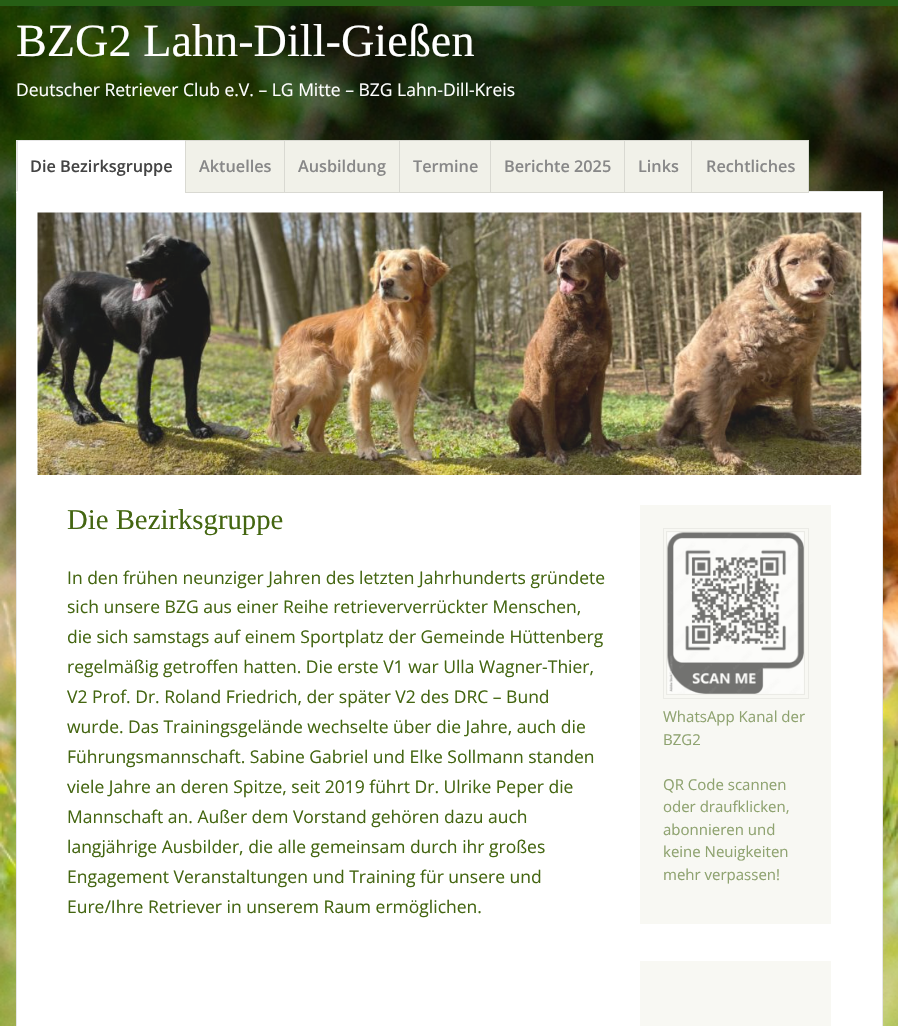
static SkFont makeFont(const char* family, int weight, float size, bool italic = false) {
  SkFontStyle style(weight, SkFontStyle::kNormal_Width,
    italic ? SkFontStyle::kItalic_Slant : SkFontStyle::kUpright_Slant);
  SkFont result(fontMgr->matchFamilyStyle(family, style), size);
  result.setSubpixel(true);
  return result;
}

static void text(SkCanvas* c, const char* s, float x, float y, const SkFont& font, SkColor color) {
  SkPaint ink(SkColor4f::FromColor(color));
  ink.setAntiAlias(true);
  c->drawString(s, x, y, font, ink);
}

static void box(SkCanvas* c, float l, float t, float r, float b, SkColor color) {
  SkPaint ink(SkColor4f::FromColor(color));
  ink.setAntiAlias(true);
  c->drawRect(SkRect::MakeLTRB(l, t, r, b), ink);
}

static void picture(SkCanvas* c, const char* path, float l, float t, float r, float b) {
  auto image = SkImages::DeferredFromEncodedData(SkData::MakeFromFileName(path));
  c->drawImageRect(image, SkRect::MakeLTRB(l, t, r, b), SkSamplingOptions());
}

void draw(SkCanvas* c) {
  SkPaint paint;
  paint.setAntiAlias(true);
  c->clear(0xffffffff);
  picture(c, "img_01.png", 0, 6, 898, 1026);
  box(c, 0, 0, 898, 6, 0xff265e15);
  SkFont face1 = makeFont("Liberation Serif", 400, 46.25f);
  text(c, "BZG2 Lahn-Dill-Gießen", 16, 56, face1, 0xffffffff);
  SkFont face2 = makeFont("Open Sans", 400, 17.5f);
  text(c, "Deutscher Retriever Club e.V. – LG Mitte – BZG Lahn-Dill-Kreis", 16, 96, face2, 0xffffffff);
  paint.setColor(0xffffffff);
  c->drawRect(SkRect::MakeLTRB(16.5f, 191.5f, 882.5f, 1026.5f), paint);
  paint.setStyle(SkPaint::kStroke_Style);
  paint.setStrokeWidth(1);
  paint.setColor(0xffe6e6e6);
  c->drawRect(SkRect::MakeLTRB(16.5f, 191.5f, 882.5f, 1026.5f), paint);
  box(c, 16, 140, 185, 193, 0xffffffff);
  paint.setStyle(SkPaint::kFill_Style);
  c->drawPath(SkPathBuilder().moveTo(16, 140).lineTo(188, 140).lineTo(186, 141).lineTo(18, 141).close().detach(), paint);
  paint.setColor(0xffffffff);
  c->drawPath(SkPathBuilder().moveTo(188, 192).lineTo(16, 192).lineTo(18, 191).lineTo(186, 191).close().detach(), paint);
  paint.setColor(0x1a000000);
  c->drawPath(SkPathBuilder().moveTo(16, 192).lineTo(16, 140).lineTo(18, 141).lineTo(18, 191).close().detach(), paint);
  SkFont face3 = makeFont("Open Sans", 600, 16.25f);
  text(c, "Die Bezirksgruppe", 30, 172, face3, 0xff444444);
  box(c, 186, 141, 284, 192, 0xfff1f1e9);
  paint.setStyle(SkPaint::kStroke_Style);
  paint.setColor(0xffd9d9d2);
  c->drawRect(SkRect::MakeLTRB(185.5f, 140.5f, 285.5f, 192.5f), paint);
  text(c, "Aktuelles", 199, 172, face3, 0xff888888);
  paint.setStyle(SkPaint::kFill_Style);
  paint.setColor(0xfff1f1e9);
  c->drawRect(SkRect::MakeLTRB(284.5f, 140.5f, 399.5f, 192.5f), paint);
  paint.setStyle(SkPaint::kStroke_Style);
  paint.setColor(0xffd9d9d2);
  c->drawRect(SkRect::MakeLTRB(284.5f, 140.5f, 399.5f, 192.5f), paint);
  text(c, "Ausbildung", 298, 172, face3, 0xff888888);
  box(c, 400, 141, 490, 192, 0xfff1f1e9);
  c->drawRect(SkRect::MakeLTRB(399.5f, 140.5f, 492.5f, 192.5f), paint);
  text(c, "Termine", 413, 172, face3, 0xff888888);
  box(c, 491, 141, 624, 192, 0xfff1f1e9);
  c->drawRect(SkRect::MakeLTRB(490.5f, 140.5f, 625.5f, 192.5f), paint);
  text(c, "Berichte 2025", 504, 172, face3, 0xff888888);
  box(c, 625, 141, 691, 192, 0xfff1f1e9);
  c->drawRect(SkRect::MakeLTRB(624.5f, 140.5f, 693.5f, 192.5f), paint);
  text(c, "Links", 638, 172, face3, 0xff888888);
  paint.setStyle(SkPaint::kFill_Style);
  paint.setColor(0xfff1f1e9);
  c->drawRect(SkRect::MakeLTRB(691.5f, 140.5f, 808.5f, 192.5f), paint);
  paint.setStyle(SkPaint::kStroke_Style);
  paint.setColor(0xffd9d9d2);
  c->drawRect(SkRect::MakeLTRB(691.5f, 140.5f, 808.5f, 192.5f), paint);
  text(c, "Rechtliches", 706, 172, face3, 0xff888888);
  picture(c, "img_02.png", 37, 212, 862, 475);
  SkFont face4 = makeFont("Liberation Serif", 400, 28.75f);
  text(c, "Die Bezirksgruppe", 67, 529, face4, 0xff446611);
  text(c, "In den frühen neunziger Jahren des letzten Jahrhunderts gründete", 67, 584, face2, 0xff446611);
  text(c, "sich unsere BZG aus einer Reihe retrieververrückter Menschen,", 67, 613, face2, 0xff446611);
  text(c, "die sich samstags auf einem Sportplatz der Gemeinde Hüttenberg", 67, 643, face2, 0xff446611);
  text(c, "regelmäßig getroffen hatten. Die erste V1 war Ulla Wagner-Thier,", 67, 673, face2, 0xff446611);
  text(c, "V2 Prof. Dr. Roland Friedrich, der später V2 des DRC – Bund", 67, 703, face2, 0xff446611);
  text(c, "wurde. Das Trainingsgelände wechselte über die Jahre, auch die", 67, 733, face2, 0xff446611);
  text(c, "Führungsmannschaft. Sabine Gabriel und Elke Sollmann standen", 67, 763, face2, 0xff446611);
  text(c, "viele Jahre an deren Spitze, seit 2019 führt Dr. Ulrike Peper die", 67, 793, face2, 0xff446611);
  text(c, "Mannschaft an. Außer dem Vorstand gehören dazu auch", 67, 823, face2, 0xff446611);
  text(c, "langjährige Ausbilder, die alle gemeinsam durch ihr großes", 67, 853, face2, 0xff446611);
  text(c, "Engagement Veranstaltungen und Training für unsere und", 67, 883, face2, 0xff446611);
  text(c, "Eure/Ihre Retriever in unserem Raum ermöglichen.", 67, 913, face2, 0xff446611);
  box(c, 640, 505, 831, 924, 0xfff8f8f3);
  paint.setColor(0xffebebe6);
  c->drawRect(SkRect::MakeLTRB(663.5f, 528.5f, 808.5f, 698.5f), paint);
  c->drawRect(SkRect::MakeLTRB(666.5f, 531.5f, 804.5f, 694.5f), paint);
  picture(c, "img_03.png", 667, 532, 804, 694);
  SkFont face5 = makeFont("Open Sans", 400, 15);
  text(c, "WhatsApp Kanal der", 663, 722, face5, 0xff8fa370);
  text(c, "BZG2", 663, 745, face5, 0xff8fa370);
  text(c, "QR Code scannen", 663, 790, face5, 0xff8fa370);
  text(c, "oder draufklicken,", 663, 812, face5, 0xff8fa370);
  text(c, "abonnieren und", 663, 835, face5, 0xff8fa370);
  text(c, "keine Neuigkeiten", 663, 857, face5, 0xff8fa370);
  text(c, "mehr verpassen!", 663, 880, face5, 0xff8fa370);
  box(c, 640, 961, 831, 1026, 0xfff8f8f3);
}
